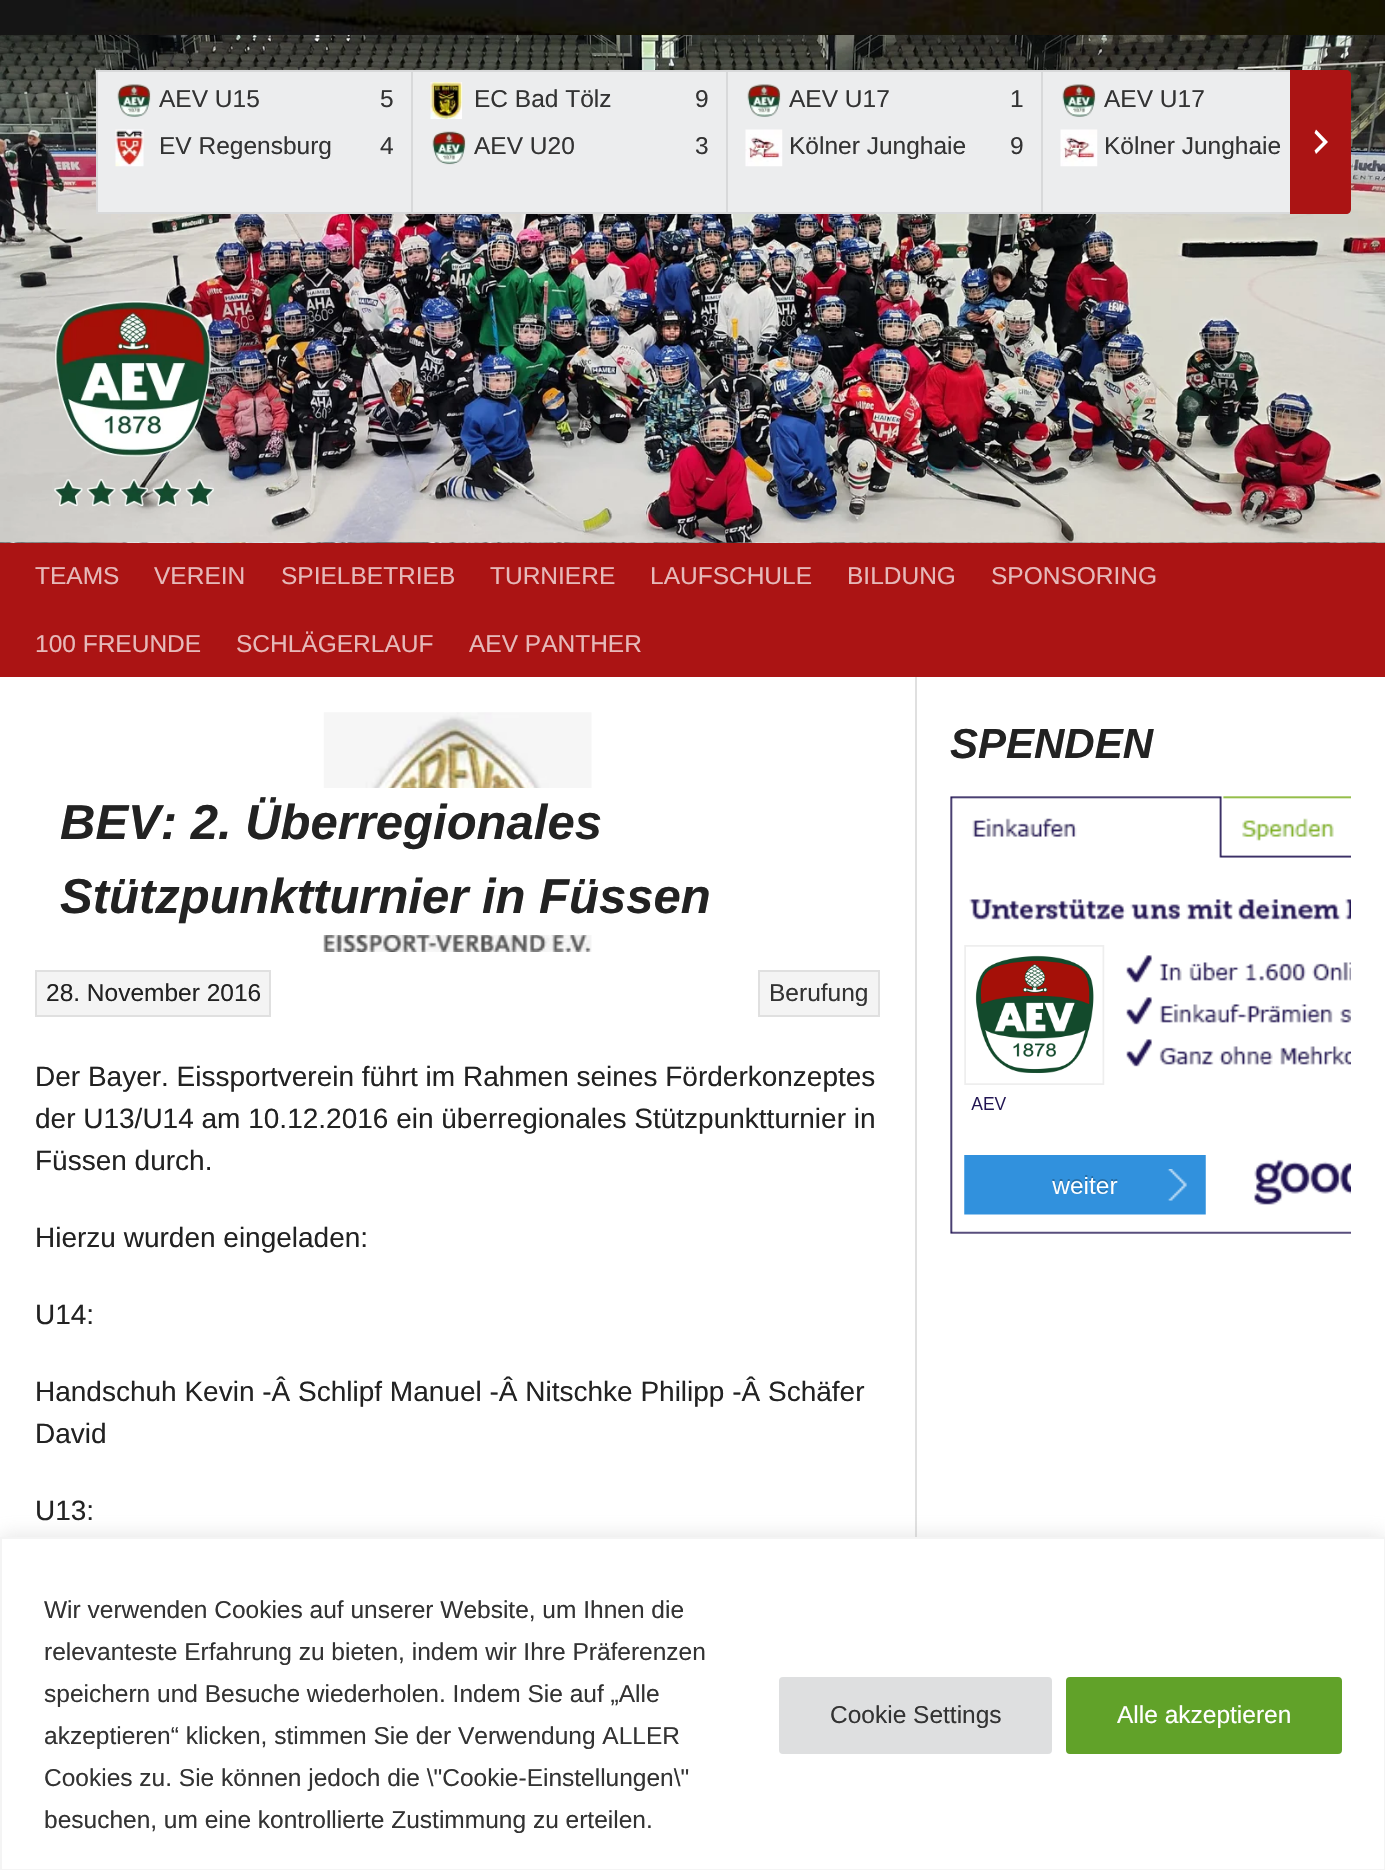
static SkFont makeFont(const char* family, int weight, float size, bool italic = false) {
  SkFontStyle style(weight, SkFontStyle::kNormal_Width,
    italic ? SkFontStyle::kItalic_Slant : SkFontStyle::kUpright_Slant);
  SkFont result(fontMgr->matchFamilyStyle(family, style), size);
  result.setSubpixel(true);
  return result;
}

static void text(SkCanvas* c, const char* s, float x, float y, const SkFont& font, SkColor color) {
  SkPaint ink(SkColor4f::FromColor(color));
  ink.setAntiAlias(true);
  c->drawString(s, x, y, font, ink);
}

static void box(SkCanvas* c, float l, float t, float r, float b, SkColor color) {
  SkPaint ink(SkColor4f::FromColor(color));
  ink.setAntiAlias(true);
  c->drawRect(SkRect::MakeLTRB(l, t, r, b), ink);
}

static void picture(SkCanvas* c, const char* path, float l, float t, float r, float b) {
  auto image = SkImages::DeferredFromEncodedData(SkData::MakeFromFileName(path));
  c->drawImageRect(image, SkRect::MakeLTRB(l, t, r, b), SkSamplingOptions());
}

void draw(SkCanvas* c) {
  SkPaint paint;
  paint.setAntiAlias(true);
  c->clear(0xffffffff);
  picture(c, "img_01.png", 0, 0, 1385, 543);
  picture(c, "img_02.png", 0, 35, 1385, 543);
  box(c, 98, 72, 1290, 212, 0xffecedee);
  box(c, 96, 70, 1290, 72, 0xffd8d9da);
  box(c, 96, 212, 1290, 214, 0xffd8d9da);
  box(c, 96, 70, 98, 214, 0xffd8d9da);
  picture(c, "img_03.png", 117, 84, 151, 117);
  SkFont face1 = makeFont("Liberation Sans", 400, 24.5f);
  text(c, "AEV U15", 159, 107, face1, 0xff333333);
  text(c, "5", 380, 107, face1, 0xff333333);
  picture(c, "img_04.png", 115, 129, 144, 167);
  text(c, "EV Regensburg", 159, 154, face1, 0xff333333);
  text(c, "4", 380, 154, face1, 0xff333333);
  box(c, 411, 70, 413, 214, 0xffd8d9da);
  picture(c, "img_05.png", 430, 82, 462, 119);
  text(c, "EC Bad Tölz", 474, 107, face1, 0xff333333);
  text(c, "9", 695, 107, face1, 0xff333333);
  picture(c, "img_06.png", 432, 131, 466, 165);
  text(c, "AEV U20", 474, 154, face1, 0xff333333);
  text(c, "3", 695, 154, face1, 0xff333333);
  box(c, 726, 70, 728, 214, 0xffd8d9da);
  picture(c, "img_03.png", 747, 84, 781, 117);
  text(c, "AEV U17", 789, 107, face1, 0xff333333);
  text(c, "1", 1010, 107, face1, 0xff333333);
  picture(c, "img_07.png", 745, 129, 783, 167);
  text(c, "Kölner Junghaie", 789, 154, face1, 0xff333333);
  text(c, "9", 1010, 154, face1, 0xff333333);
  box(c, 1041, 70, 1043, 214, 0xffd8d9da);
  picture(c, "img_03.png", 1062, 84, 1096, 117);
  text(c, "AEV U17", 1104, 107, face1, 0xff333333);
  picture(c, "img_07.png", 1060, 129, 1098, 167);
  text(c, "Kölner Junghaie", 1104, 154, face1, 0xff333333);
  paint.setColor(0xffab1414);
  c->drawPath(SkPathBuilder().moveTo(1290, 70).lineTo(1346, 70).cubicTo(1349, 70, 1351, 72, 1351, 75).lineTo(1351, 209).cubicTo(1351, 212, 1349, 214, 1346, 214).lineTo(1290, 214).close().detach(), paint);
  paint.setColor(0xffffffff);
  c->drawPath(SkPathBuilder().moveTo(1314.5f, 150.5f).lineTo(1323, 142).lineTo(1314.5f, 133).lineTo(1316, 129.5f).lineTo(1328, 142).lineTo(1316, 154).close().detach(), paint);
  c->save();
  c->clipPath(SkPathBuilder(SkPathFillType::kEvenOdd).moveTo(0, 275).lineTo(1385, 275).lineTo(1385, 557).lineTo(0, 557).close().moveTo(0, 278).lineTo(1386, 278).lineTo(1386, 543).lineTo(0, 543).close().detach(), true);
  paint.setColor(0x33000000);
  paint.setMaskFilter(SkMaskFilter::MakeBlur(kNormal_SkBlurStyle, 2.5f));
  c->drawRect(SkRect::MakeLTRB(0, 284, 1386, 548), paint);
  paint.setMaskFilter(nullptr);
  c->restore();
  picture(c, "img_08.png", 54, 301, 214, 507);
  box(c, 0, 543, 1385, 677, 0xffab1414);
  text(c, "TEAMS", 35, 584, face1, 0xffe6b9b9);
  text(c, "VEREIN", 154, 584, face1, 0xffe6b9b9);
  text(c, "SPIELBETRIEB", 281, 584, face1, 0xffe6b9b9);
  text(c, "TURNIERE", 490, 584, face1, 0xffe6b9b9);
  text(c, "LAUFSCHULE", 650, 584, face1, 0xffe6b9b9);
  text(c, "BILDUNG", 847, 584, face1, 0xffe6b9b9);
  text(c, "SPONSORING", 991, 584, face1, 0xffe6b9b9);
  text(c, "100 FREUNDE", 35, 652, face1, 0xffe6b9b9);
  text(c, "SCHLÄGERLAUF", 236, 652, face1, 0xffe6b9b9);
  text(c, "AEV PANTHER", 469, 652, face1, 0xffe6b9b9);
  SkFont face2 = makeFont("Liberation Sans", 700, 42, true);
  text(c, "SPENDEN", 950, 758, face2, 0xff222222);
  picture(c, "img_09.png", 950, 796, 1351, 1234);
  paint.setColor(0xffe0e0e0);
  c->drawPath(SkPathBuilder().moveTo(2, 677).lineTo(915, 677).lineTo(915, 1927).lineTo(2, 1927).lineTo(917, 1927).lineTo(917, 677).close().detach(), paint);
  picture(c, "img_10.png", 323, 712, 592, 952);
  box(c, 323, 788, 592, 935, 0xffffffff);
  SkFont face3 = makeFont("Liberation Sans", 700, 49, true);
  text(c, "BEV: 2. Überregionales", 60, 839, face3, 0xff222222);
  text(c, "Stützpunktturnier in Füssen", 60, 913, face3, 0xff222222);
  paint.setColor(0xfff4f4f4);
  c->drawRect(SkRect::MakeLTRB(36, 971, 270, 1016), paint);
  paint.setStyle(SkPaint::kStroke_Style);
  paint.setStrokeWidth(2);
  paint.setColor(0xffe0e0e0);
  c->drawRect(SkRect::MakeLTRB(36, 971, 270, 1016), paint);
  text(c, "28. November 2016", 46, 1001, face1, 0xff222222);
  paint.setStyle(SkPaint::kFill_Style);
  paint.setColor(0xfff4f4f4);
  c->drawRect(SkRect::MakeLTRB(759, 971, 879, 1016), paint);
  paint.setStyle(SkPaint::kStroke_Style);
  paint.setColor(0xffe0e0e0);
  c->drawRect(SkRect::MakeLTRB(759, 971, 879, 1016), paint);
  text(c, "Berufung", 769, 1001, face1, 0xff333333);
  SkFont face4 = makeFont("Liberation Sans", 400, 28);
  text(c, "Der Bayer. Eissportverein führt im Rahmen seines Förderkonzeptes", 35, 1086, face4, 0xff222222);
  text(c, "der U13/U14 am 10.12.2016 ein überregionales Stützpunktturnier in", 35, 1128, face4, 0xff222222);
  text(c, "Füssen durch.", 35, 1170, face4, 0xff222222);
  text(c, "Hierzu wurden eingeladen:", 35, 1247, face4, 0xff222222);
  text(c, "U14:", 35, 1324, face4, 0xff222222);
  text(c, "Handschuh Kevin -Â Schlipf Manuel -Â Nitschke Philipp -Â Schäfer", 35, 1401, face4, 0xff222222);
  text(c, "David", 35, 1443, face4, 0xff222222);
  text(c, "U13:", 35, 1520, face4, 0xff222222);
  paint.setStyle(SkPaint::kFill_Style);
  paint.setColor(0x4dacabab);
  paint.setMaskFilter(SkMaskFilter::MakeBlur(kNormal_SkBlurStyle, 9));
  c->drawRect(SkRect::MakeLTRB(0, 1535, 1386, 1869), paint);
  paint.setMaskFilter(nullptr);
  paint.setColor(0xffffffff);
  c->drawRect(SkRect::MakeLTRB(1, 1538, 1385, 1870), paint);
  paint.setStyle(SkPaint::kStroke_Style);
  paint.setColor(0xfff4f4f4);
  c->drawRect(SkRect::MakeLTRB(1, 1538, 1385, 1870), paint);
  text(c, "Wir verwenden Cookies auf unserer Website, um Ihnen die", 44, 1618, face1, 0xff333333);
  text(c, "relevanteste Erfahrung zu bieten, indem wir Ihre Präferenzen", 44, 1660, face1, 0xff333333);
  text(c, "speichern und Besuche wiederholen. Indem Sie auf „Alle", 44, 1702, face1, 0xff333333);
  text(c, "akzeptieren“ klicken, stimmen Sie der Verwendung ALLER", 44, 1744, face1, 0xff333333);
  text(c, "Cookies zu. Sie können jedoch die \\\"Cookie-Einstellungen\\\"", 44, 1786, face1, 0xff333333);
  text(c, "besuchen, um eine kontrollierte Zustimmung zu erteilen.", 44, 1828, face1, 0xff333333);
  paint.setStyle(SkPaint::kFill_Style);
  paint.setColor(0xffdedfe0);
  c->drawRoundRect(SkRect::MakeLTRB(781, 1679, 1050, 1752), 2, 2, paint);
  paint.setStyle(SkPaint::kStroke_Style);
  paint.setStrokeWidth(4);
  c->drawRoundRect(SkRect::MakeLTRB(781, 1679, 1050, 1752), 2, 2, paint);
  text(c, "Cookie Settings", 830, 1723, face1, 0xff333333);
  paint.setStyle(SkPaint::kFill_Style);
  paint.setColor(0xff61a229);
  c->drawRoundRect(SkRect::MakeLTRB(1068, 1679, 1340, 1752), 2, 2, paint);
  paint.setStyle(SkPaint::kStroke_Style);
  c->drawRoundRect(SkRect::MakeLTRB(1068, 1679, 1340, 1752), 2, 2, paint);
  text(c, "Alle akzeptieren", 1117, 1723, face1, 0xffffffff);
}
